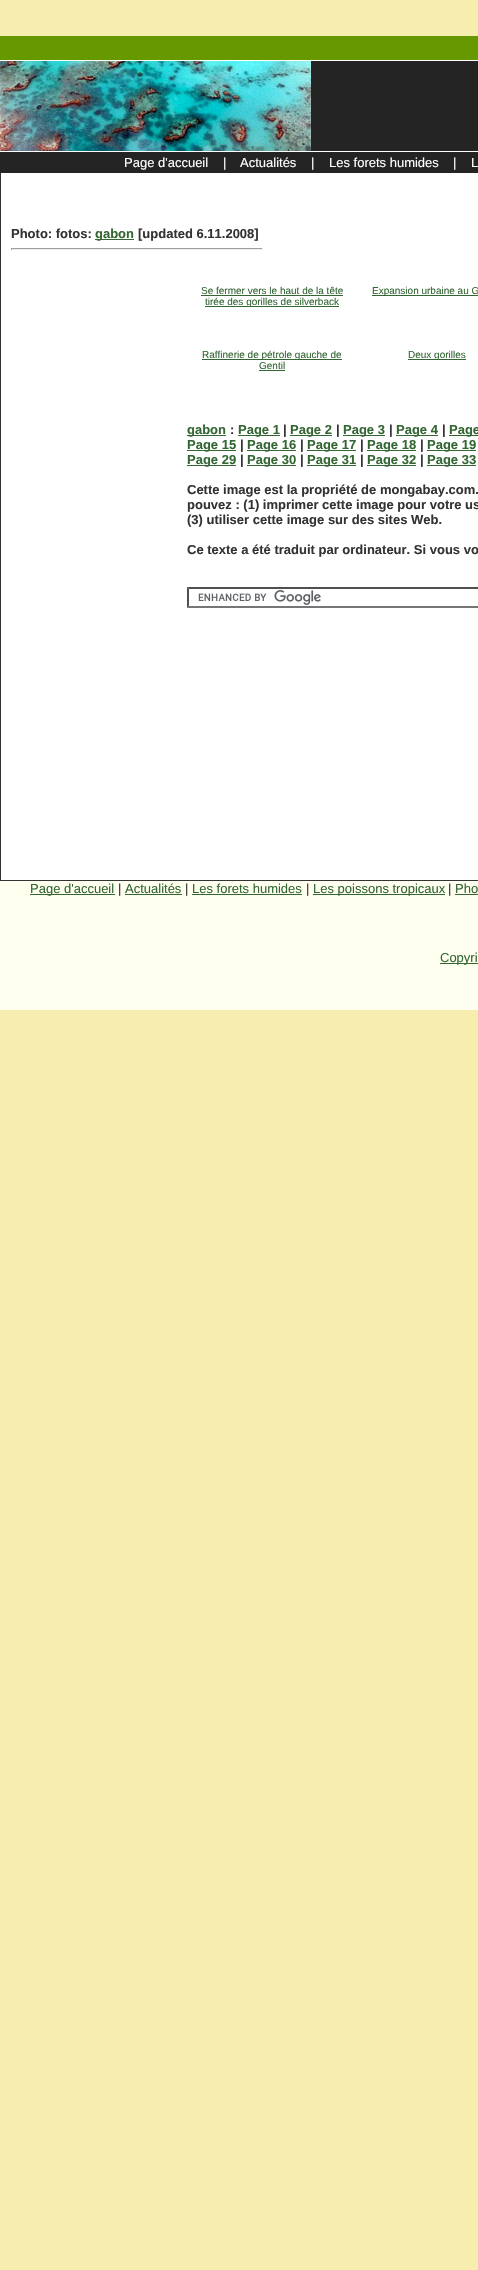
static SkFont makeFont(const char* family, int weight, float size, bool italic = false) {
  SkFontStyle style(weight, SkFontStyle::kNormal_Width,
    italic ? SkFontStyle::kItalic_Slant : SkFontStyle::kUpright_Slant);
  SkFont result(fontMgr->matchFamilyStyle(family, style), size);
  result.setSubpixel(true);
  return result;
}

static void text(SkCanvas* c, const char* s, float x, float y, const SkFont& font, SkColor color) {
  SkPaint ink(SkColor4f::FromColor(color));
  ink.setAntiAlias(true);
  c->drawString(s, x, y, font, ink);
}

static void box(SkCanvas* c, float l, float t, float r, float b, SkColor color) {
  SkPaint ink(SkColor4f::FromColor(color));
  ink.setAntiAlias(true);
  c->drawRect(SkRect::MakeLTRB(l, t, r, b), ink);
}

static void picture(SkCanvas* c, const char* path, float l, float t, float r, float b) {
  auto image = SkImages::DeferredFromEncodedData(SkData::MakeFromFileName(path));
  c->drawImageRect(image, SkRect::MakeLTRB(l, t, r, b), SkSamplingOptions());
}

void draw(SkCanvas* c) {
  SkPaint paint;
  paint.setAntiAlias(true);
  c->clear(0xfff6edae);
  box(c, 0, 36, 478, 60, 0xff669900);
  box(c, 0, 60, 478, 61, 0xffffffff);
  box(c, 311, 61, 478, 151, 0xff242424);
  picture(c, "img_01.png", 0, 61, 311, 151);
  box(c, 0, 151, 478, 152, 0xffffffff);
  box(c, 0, 152, 478, 173, 0xff242424);
  SkFont face1 = makeFont("Liberation Sans", 400, 13);
  text(c, "Page d'accueil", 124, 167, face1, 0xffffffff);
  text(c, "|", 223, 167, face1, 0xffffffff);
  text(c, "Actualités", 240, 167, face1, 0xffffffff);
  text(c, "|", 311, 167, face1, 0xffffffff);
  text(c, "Les forets humides", 329, 167, face1, 0xffffffff);
  text(c, "|", 453, 167, face1, 0xffffffff);
  text(c, "L", 471, 167, face1, 0xffffffff);
  box(c, 1, 173, 478, 880, 0xffffffff);
  box(c, 0, 173, 1, 880, 0xff333333);
  SkFont face2 = makeFont("Liberation Sans", 700, 13);
  text(c, "Photo: fotos:", 11, 238, face2, 0xff333333);
  box(c, 95, 239, 134, 240, 0xff336633);
  text(c, "gabon", 95, 238, face2, 0xff336633);
  text(c, "[updated 6.11.2008]", 138, 238, face2, 0xff333333);
  box(c, 11, 248, 263, 249, 0xff9f9f9f);
  box(c, 262, 248, 263, 250, 0xffeeeeee);
  box(c, 11, 249, 263, 250, 0xffeeeeee);
  box(c, 11, 248, 12, 250, 0xff9f9f9f);
  SkFont face3 = makeFont("Liberation Sans", 400, 10);
  text(c, "Se fermer vers le haut de la tête", 201, 294, face3, 0xff336633);
  box(c, 201, 295, 343, 296, 0xff336633);
  box(c, 205, 306, 339, 307, 0xff336633);
  text(c, "tirée des gorilles de silverback", 205, 305, face3, 0xff336633);
  box(c, 372, 295, 478, 296, 0xff336633);
  text(c, "Expansion urbaine au G", 372, 294, face3, 0xff336633);
  box(c, 202, 359, 342, 360, 0xff336633);
  text(c, "Raffinerie de pétrole gauche de", 202, 358, face3, 0xff336633);
  text(c, "Gentil", 259, 369, face3, 0xff336633);
  box(c, 259, 370, 285, 371, 0xff336633);
  box(c, 408, 359, 466, 360, 0xff336633);
  text(c, "Deux gorilles", 408, 358, face3, 0xff336633);
  box(c, 187, 435, 226, 436, 0xff336633);
  text(c, "gabon", 187, 434, face2, 0xff336633);
  text(c, ":", 230, 434, face2, 0xff333333);
  box(c, 238, 435, 280, 436, 0xff336633);
  text(c, "Page 1", 238, 434, face2, 0xff336633);
  text(c, "|", 283, 434, face2, 0xff333333);
  box(c, 290, 435, 332, 436, 0xff336633);
  text(c, "Page 2", 290, 434, face2, 0xff336633);
  text(c, "|", 336, 434, face2, 0xff333333);
  box(c, 343, 435, 385, 436, 0xff336633);
  text(c, "Page 3", 343, 434, face2, 0xff336633);
  text(c, "|", 389, 434, face2, 0xff333333);
  box(c, 396, 435, 438, 436, 0xff336633);
  text(c, "Page 4", 396, 434, face2, 0xff336633);
  text(c, "|", 442, 434, face2, 0xff333333);
  box(c, 449, 435, 478, 436, 0xff336633);
  text(c, "Page", 449, 434, face2, 0xff336633);
  box(c, 187, 450, 236, 451, 0xff336633);
  text(c, "Page 15", 187, 449, face2, 0xff336633);
  text(c, "|", 240, 449, face2, 0xff333333);
  box(c, 247, 450, 296, 451, 0xff336633);
  text(c, "Page 16", 247, 449, face2, 0xff336633);
  text(c, "|", 300, 449, face2, 0xff333333);
  box(c, 307, 450, 356, 451, 0xff336633);
  text(c, "Page 17", 307, 449, face2, 0xff336633);
  text(c, "|", 360, 449, face2, 0xff333333);
  box(c, 367, 450, 416, 451, 0xff336633);
  text(c, "Page 18", 367, 449, face2, 0xff336633);
  text(c, "|", 420, 449, face2, 0xff333333);
  box(c, 427, 450, 476, 451, 0xff336633);
  text(c, "Page 19", 427, 449, face2, 0xff336633);
  box(c, 187, 465, 236, 466, 0xff336633);
  text(c, "Page 29", 187, 464, face2, 0xff336633);
  text(c, "|", 240, 464, face2, 0xff333333);
  box(c, 247, 465, 296, 466, 0xff336633);
  text(c, "Page 30", 247, 464, face2, 0xff336633);
  text(c, "|", 300, 464, face2, 0xff333333);
  box(c, 307, 465, 356, 466, 0xff336633);
  text(c, "Page 31", 307, 464, face2, 0xff336633);
  text(c, "|", 360, 464, face2, 0xff333333);
  box(c, 367, 465, 416, 466, 0xff336633);
  text(c, "Page 32", 367, 464, face2, 0xff336633);
  text(c, "|", 420, 464, face2, 0xff333333);
  box(c, 427, 465, 476, 466, 0xff336633);
  text(c, "Page 33", 427, 464, face2, 0xff336633);
  text(c, "Cette image est la propriété de mongabay.com.", 187, 494, face2, 0xff333333);
  text(c, "pouvez : (1) imprimer cette image pour votre us", 187, 509, face2, 0xff333333);
  text(c, "(3) utiliser cette image sur des sites Web.", 187, 524, face2, 0xff333333);
  text(c, "Ce texte a été traduit par ordinateur. Si vous vo", 187, 554, face2, 0xff333333);
  picture(c, "img_02.png", 198, 590, 321, 605);
  paint.setColor(0xff4f4f4f);
  c->drawPath(SkPathBuilder().moveTo(187, 587).lineTo(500, 587).lineTo(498, 589).lineTo(189, 589).close().detach(), paint);
  paint.setColor(0xff767676);
  c->drawPath(SkPathBuilder().moveTo(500, 608).lineTo(187, 608).lineTo(189, 606).lineTo(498, 606).close().detach(), paint);
  paint.setColor(0xff4f4f4f);
  c->drawPath(SkPathBuilder().moveTo(187, 608).lineTo(187, 587).lineTo(189, 589).lineTo(189, 606).close().detach(), paint);
  box(c, 0, 880, 478, 881, 0xff333333);
  box(c, 0, 881, 478, 1010, 0xfffffff0);
  box(c, 30, 894, 115, 895, 0xff336633);
  text(c, "Page d'accueil", 30, 893, face1, 0xff336633);
  text(c, "|", 118, 893, face1, 0xff333333);
  text(c, "Actualités", 125, 893, face1, 0xff336633);
  box(c, 125, 894, 182, 895, 0xff336633);
  text(c, "|", 185, 893, face1, 0xff333333);
  text(c, "Les forets humides", 192, 893, face1, 0xff336633);
  box(c, 192, 894, 302, 895, 0xff336633);
  text(c, "|", 306, 893, face1, 0xff333333);
  box(c, 313, 894, 445, 895, 0xff336633);
  text(c, "Les poissons tropicaux", 313, 893, face1, 0xff336633);
  text(c, "|", 448, 893, face1, 0xff333333);
  text(c, "Pho", 455, 893, face1, 0xff336633);
  box(c, 455, 894, 478, 895, 0xff336633);
  box(c, 440, 963, 478, 964, 0xff336633);
  text(c, "Copyri", 440, 962, face1, 0xff336633);
}
